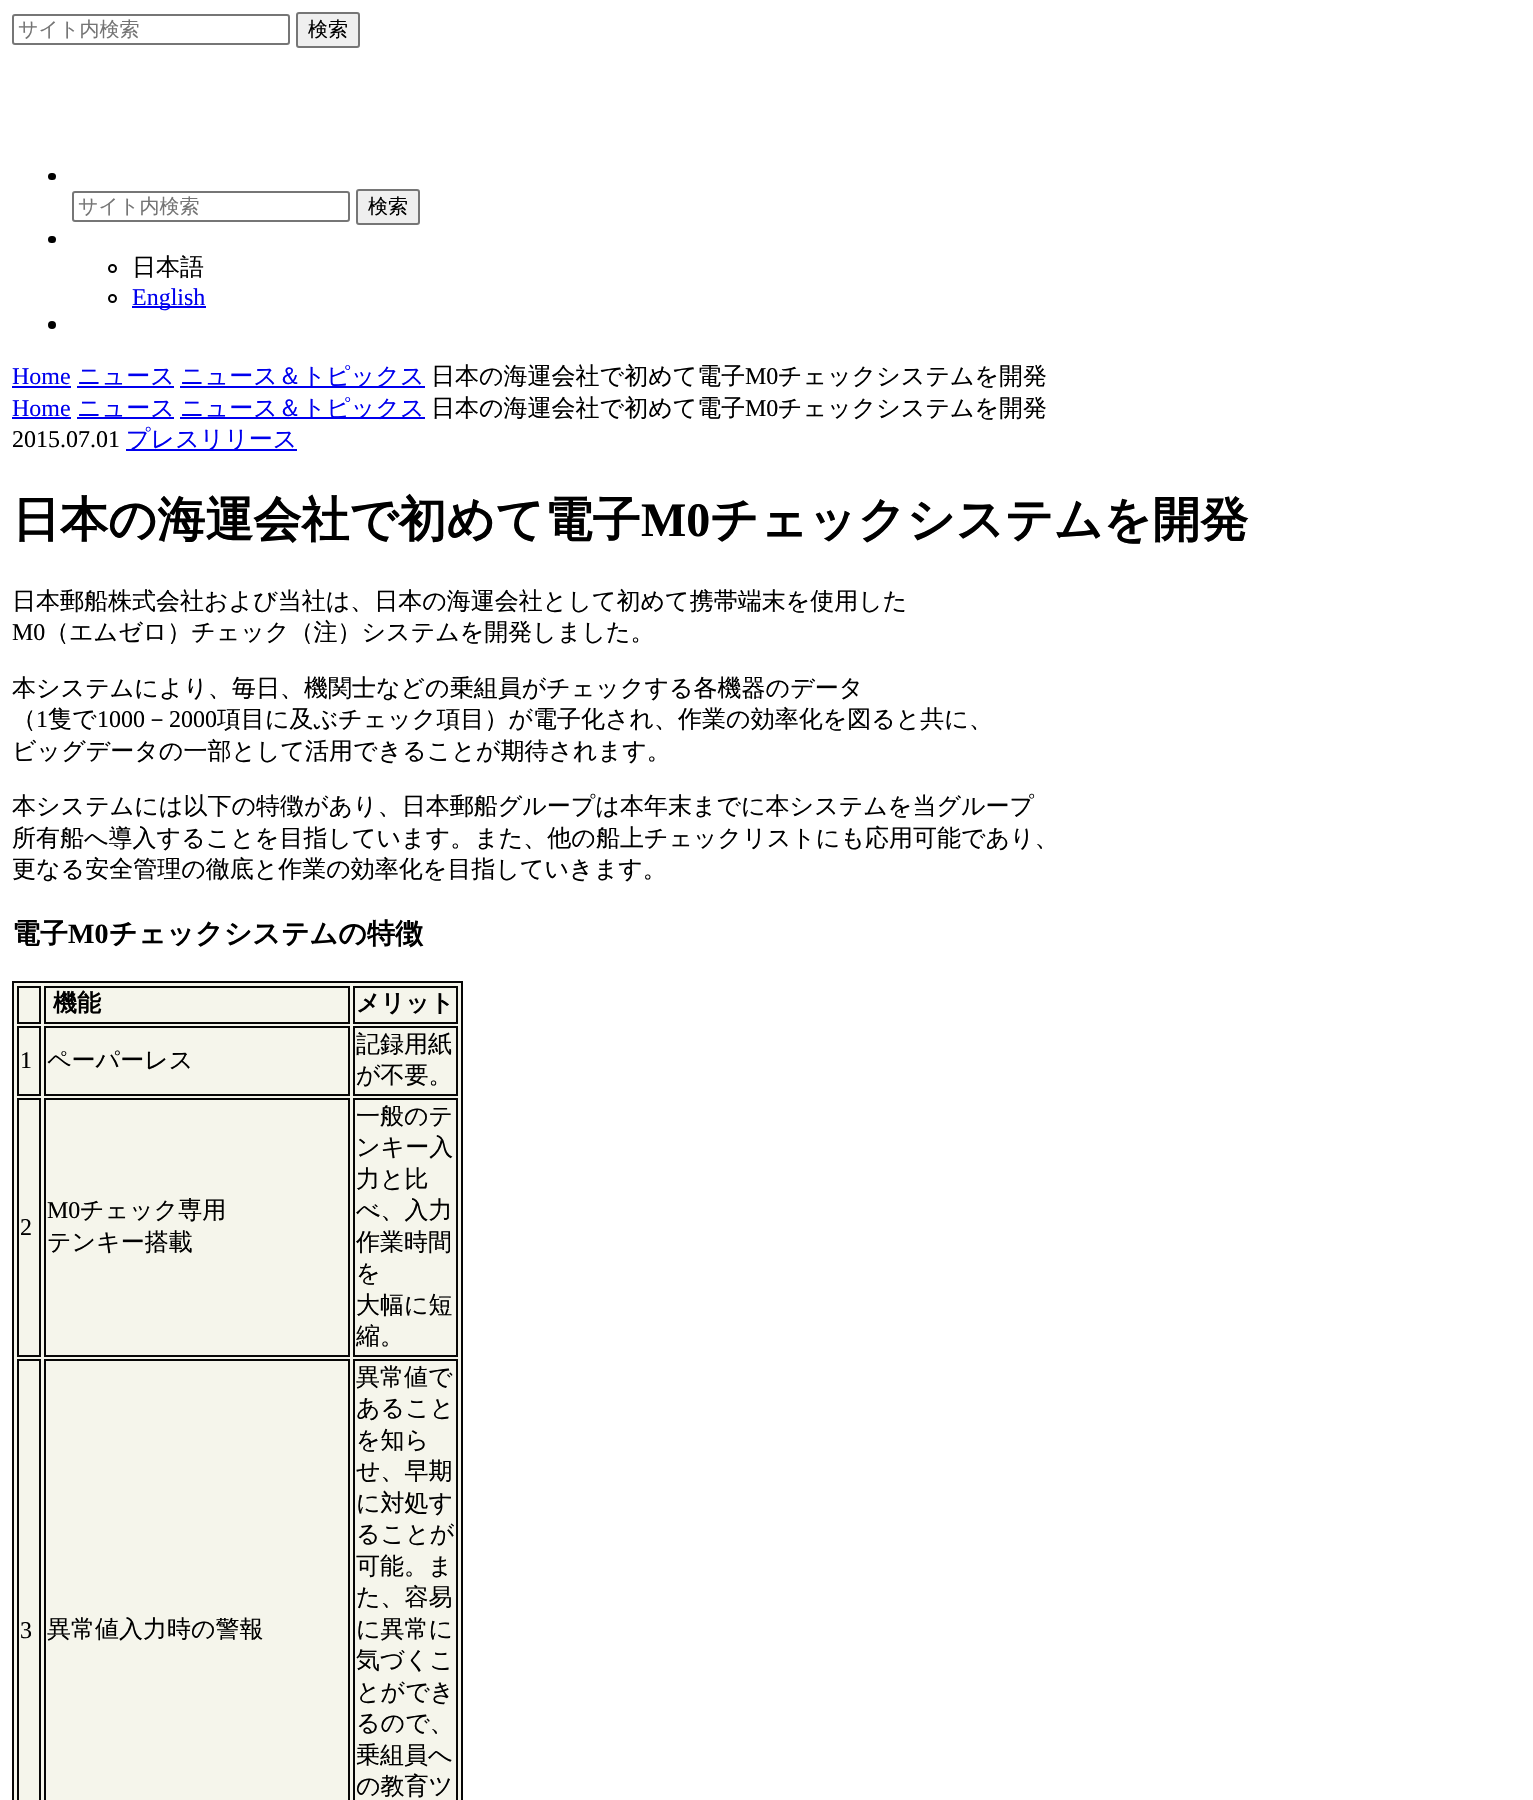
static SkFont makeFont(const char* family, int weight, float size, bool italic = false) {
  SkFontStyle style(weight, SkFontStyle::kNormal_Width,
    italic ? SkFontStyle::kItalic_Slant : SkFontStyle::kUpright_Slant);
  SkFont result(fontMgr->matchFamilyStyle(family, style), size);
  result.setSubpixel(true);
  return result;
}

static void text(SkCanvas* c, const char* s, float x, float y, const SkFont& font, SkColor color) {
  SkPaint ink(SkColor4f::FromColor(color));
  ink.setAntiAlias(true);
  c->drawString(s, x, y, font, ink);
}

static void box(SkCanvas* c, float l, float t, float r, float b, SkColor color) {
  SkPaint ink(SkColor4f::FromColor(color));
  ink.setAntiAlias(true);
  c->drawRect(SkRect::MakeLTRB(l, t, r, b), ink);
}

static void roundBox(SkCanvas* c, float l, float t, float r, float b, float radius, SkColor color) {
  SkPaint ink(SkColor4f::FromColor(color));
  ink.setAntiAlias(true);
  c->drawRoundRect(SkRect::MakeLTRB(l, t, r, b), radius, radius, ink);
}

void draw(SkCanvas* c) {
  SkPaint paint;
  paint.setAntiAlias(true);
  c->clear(0xffffffff);
  paint.setStyle(SkPaint::kStroke_Style);
  paint.setStrokeWidth(2);
  paint.setColor(0xff767676);
  c->drawRoundRect(SkRect::MakeLTRB(13, 15, 289, 44), 2, 2, paint);
  SkFont face1 = makeFont("WenQuanYi Zen Hei", 500, 20);
  text(c, "サイト内検索", 18, 36, face1, 0xff757575);
  paint.setStyle(SkPaint::kFill_Style);
  paint.setColor(0xffefefef);
  c->drawRoundRect(SkRect::MakeLTRB(297, 13, 359, 47), 2, 2, paint);
  paint.setStyle(SkPaint::kStroke_Style);
  paint.setColor(0xff767676);
  c->drawRoundRect(SkRect::MakeLTRB(297, 13, 359, 47), 2, 2, paint);
  text(c, "検索", 308, 36, face1, 0xff000000);
  roundBox(c, 48, 173, 56, 180, 3.5f, 0xff000000);
  c->drawRoundRect(SkRect::MakeLTRB(73, 192, 349, 221), 2, 2, paint);
  text(c, "サイト内検索", 78, 213, face1, 0xff757575);
  paint.setStyle(SkPaint::kFill_Style);
  paint.setColor(0xffefefef);
  c->drawRoundRect(SkRect::MakeLTRB(357, 190, 419, 224), 2, 2, paint);
  paint.setStyle(SkPaint::kStroke_Style);
  paint.setColor(0xff767676);
  c->drawRoundRect(SkRect::MakeLTRB(357, 190, 419, 224), 2, 2, paint);
  text(c, "検索", 368, 213, face1, 0xff000000);
  roundBox(c, 48, 236, 56, 243, 3.5f, 0xff000000);
  paint.setColor(0xff000000);
  c->drawCircle(112.5f, 268.5f, 3.5f, paint);
  SkFont face2 = makeFont("WenQuanYi Zen Hei", 500, 24);
  text(c, "日本語", 132, 275, face2, 0xff000000);
  c->drawCircle(112.5f, 298.5f, 3.5f, paint);
  box(c, 132, 306, 206, 308, 0xff0000ee);
  SkFont face3 = makeFont("Liberation Serif", 400, 24);
  text(c, "English", 132, 305, face3, 0xff0000ee);
  paint.setStyle(SkPaint::kFill_Style);
  c->drawCircle(52, 325, 4, paint);
  text(c, "Home", 12, 384, face3, 0xff0000ee);
  box(c, 12, 386, 71, 388, 0xff0000ee);
  text(c, "ニュース", 77, 384, face2, 0xff0000ee);
  box(c, 77, 386, 174, 388, 0xff0000ee);
  box(c, 180, 386, 425, 388, 0xff0000ee);
  text(c, "ニュース＆トピックス", 180, 384, face2, 0xff0000ee);
  text(c, "日本の海運会社で初めて電子", 431, 384, face2, 0xff000000);
  text(c, "M0", 745, 384, face3, 0xff000000);
  text(c, "チェックシステムを開発", 778, 384, face2, 0xff000000);
  text(c, "Home", 12, 416, face3, 0xff0000ee);
  box(c, 12, 417, 71, 419, 0xff0000ee);
  box(c, 77, 417, 174, 419, 0xff0000ee);
  text(c, "ニュース", 77, 416, face2, 0xff0000ee);
  box(c, 180, 417, 425, 419, 0xff0000ee);
  text(c, "ニュース＆トピックス", 180, 416, face2, 0xff0000ee);
  text(c, "日本の海運会社で初めて電子", 431, 416, face2, 0xff000000);
  text(c, "M0", 745, 416, face3, 0xff000000);
  text(c, "チェックシステムを開発", 778, 416, face2, 0xff000000);
  text(c, "2015.07.01", 12, 447, face3, 0xff000000);
  box(c, 126, 449, 297, 451, 0xff0000ee);
  text(c, "プレスリリース", 126, 447, face2, 0xff0000ee);
  SkFont face4 = makeFont("WenQuanYi Zen Hei", 700, 48);
  text(c, "日本の海運会社で初めて電子", 12, 536, face4, 0xff000000);
  SkFont face5 = makeFont("Liberation Serif", 700, 48);
  text(c, "M0", 641, 536, face5, 0xff000000);
  text(c, "チェックシステムを開発", 710, 536, face4, 0xff000000);
  text(c, "日本郵船株式会社および当社は、日本の海運会社として初めて携帯端末を使用した", 12, 609, face2, 0xff000000);
  text(c, "M0", 12, 640, face3, 0xff000000);
  text(c, "（エムゼロ）チェック（注）システムを開発しました。", 45, 640, face2, 0xff000000);
  text(c, "本システムにより、毎日、機関士などの乗組員がチェックする各機器のデータ", 12, 696, face2, 0xff000000);
  text(c, "（", 12, 727, face2, 0xff000000);
  text(c, "1", 36, 727, face3, 0xff000000);
  text(c, "隻で", 48, 727, face2, 0xff000000);
  text(c, "1000", 97, 727, face3, 0xff000000);
  text(c, "－", 145, 727, face2, 0xff000000);
  text(c, "2000", 169, 727, face3, 0xff000000);
  text(c, "項目に及ぶチェック項目）が電子化され、作業の効率化を図ると共に、", 217, 727, face2, 0xff000000);
  text(c, "ビッグデータの一部として活用できることが期待されます。", 12, 759, face2, 0xff000000);
  text(c, "本システムには以下の特徴があり、日本郵船グループは本年末までに本システムを当グループ", 12, 814, face2, 0xff000000);
  text(c, "所有船へ導入することを目指しています。また、他の船上チェックリストにも応用可能であり、", 12, 846, face2, 0xff000000);
  text(c, "更なる安全管理の徹底と作業の効率化を目指していきます。", 12, 877, face2, 0xff000000);
  SkFont face6 = makeFont("WenQuanYi Zen Hei", 700, 28);
  text(c, "電子", 12, 943, face6, 0xff000000);
  SkFont face7 = makeFont("Liberation Serif", 700, 28);
  text(c, "M0", 68, 943, face7, 0xff000000);
  text(c, "チェックシステムの特徴", 109, 943, face6, 0xff000000);
  box(c, 14, 983, 461, 1800, 0xfff5f5eb);
  box(c, 12, 981, 462, 983, 0xff080707);
  box(c, 461, 981, 463, 1800, 0xff050505);
  box(c, 12, 981, 14, 1800, 0xff080707);
  box(c, 17, 986, 41, 988, 0xff050505);
  box(c, 39, 986, 41, 1023, 0xff080707);
  box(c, 17, 1022, 41, 1024, 0xff080707);
  box(c, 17, 986, 19, 1023, 0xff050505);
  box(c, 44, 986, 350, 988, 0xff050505);
  box(c, 348, 986, 350, 1023, 0xff080707);
  box(c, 44, 1022, 350, 1024, 0xff080707);
  box(c, 44, 986, 46, 1023, 0xff050505);
  SkFont face8 = makeFont("WenQuanYi Zen Hei", 700, 24);
  text(c, "機能", 53, 1011, face8, 0xff000000);
  box(c, 353, 986, 458, 988, 0xff050505);
  box(c, 456, 986, 458, 1023, 0xff080707);
  box(c, 353, 1022, 458, 1024, 0xff080707);
  box(c, 353, 986, 355, 1023, 0xff050505);
  text(c, "メリット", 356, 1011, face8, 0xff000000);
  box(c, 17, 1026, 41, 1028, 0xff050505);
  box(c, 39, 1026, 41, 1095, 0xff080707);
  box(c, 17, 1094, 41, 1096, 0xff080707);
  box(c, 17, 1026, 19, 1095, 0xff050505);
  text(c, "1", 20, 1068, face3, 0xff000000);
  box(c, 44, 1026, 350, 1028, 0xff050505);
  box(c, 348, 1026, 350, 1095, 0xff080707);
  box(c, 44, 1094, 350, 1096, 0xff080707);
  box(c, 44, 1026, 46, 1095, 0xff050505);
  text(c, "ペーパーレス", 47, 1068, face2, 0xff000000);
  box(c, 353, 1026, 458, 1028, 0xff050505);
  box(c, 456, 1026, 458, 1095, 0xff080707);
  box(c, 353, 1094, 458, 1096, 0xff080707);
  box(c, 353, 1026, 355, 1095, 0xff050505);
  text(c, "記録用紙", 356, 1052, face2, 0xff000000);
  text(c, "が不要。", 356, 1083, face2, 0xff000000);
  box(c, 17, 1098, 41, 1100, 0xff050505);
  box(c, 39, 1098, 41, 1356, 0xff080707);
  box(c, 17, 1355, 41, 1357, 0xff080707);
  box(c, 17, 1098, 19, 1356, 0xff050505);
  text(c, "2", 20, 1235, face3, 0xff000000);
  box(c, 44, 1098, 350, 1100, 0xff050505);
  box(c, 348, 1098, 350, 1356, 0xff080707);
  box(c, 44, 1355, 350, 1357, 0xff080707);
  box(c, 44, 1098, 46, 1356, 0xff050505);
  text(c, "M0", 47, 1218, face3, 0xff000000);
  text(c, "チェック専用", 80, 1218, face2, 0xff000000);
  text(c, "テンキー搭載", 47, 1250, face2, 0xff000000);
  box(c, 353, 1098, 458, 1100, 0xff050505);
  box(c, 456, 1098, 458, 1356, 0xff080707);
  box(c, 353, 1355, 458, 1357, 0xff080707);
  box(c, 353, 1098, 355, 1356, 0xff050505);
  text(c, "一般のテ", 356, 1124, face2, 0xff000000);
  text(c, "ンキー入", 356, 1155, face2, 0xff000000);
  text(c, "力と比", 356, 1187, face2, 0xff000000);
  text(c, "べ、入力", 356, 1218, face2, 0xff000000);
  text(c, "作業時間", 356, 1250, face2, 0xff000000);
  text(c, "を", 356, 1281, face2, 0xff000000);
  text(c, "大幅に短", 356, 1313, face2, 0xff000000);
  text(c, "縮。", 356, 1344, face2, 0xff000000);
  box(c, 17, 1359, 41, 1361, 0xff050505);
  box(c, 39, 1359, 41, 1800, 0xff080707);
  box(c, 17, 1359, 19, 1800, 0xff050505);
  text(c, "3", 20, 1638, face3, 0xff000000);
  box(c, 44, 1359, 350, 1361, 0xff050505);
  box(c, 348, 1359, 350, 1800, 0xff080707);
  box(c, 44, 1359, 46, 1800, 0xff050505);
  text(c, "異常値入力時の警報", 47, 1637, face2, 0xff000000);
  box(c, 353, 1359, 458, 1361, 0xff050505);
  box(c, 456, 1359, 458, 1800, 0xff080707);
  box(c, 353, 1359, 355, 1800, 0xff050505);
  text(c, "異常値で", 356, 1385, face2, 0xff000000);
  text(c, "あること", 356, 1416, face2, 0xff000000);
  text(c, "を知ら", 356, 1448, face2, 0xff000000);
  text(c, "せ、早期", 356, 1479, face2, 0xff000000);
  text(c, "に対処す", 356, 1511, face2, 0xff000000);
  text(c, "ることが", 356, 1542, face2, 0xff000000);
  text(c, "可能。ま", 356, 1574, face2, 0xff000000);
  text(c, "た、容易", 356, 1605, face2, 0xff000000);
  text(c, "に異常に", 356, 1637, face2, 0xff000000);
  text(c, "気づくこ", 356, 1668, face2, 0xff000000);
  text(c, "とができ", 356, 1700, face2, 0xff000000);
  text(c, "るので、", 356, 1731, face2, 0xff000000);
  text(c, "乗組員へ", 356, 1763, face2, 0xff000000);
  text(c, "の教育ツ", 356, 1794, face2, 0xff000000);
}
